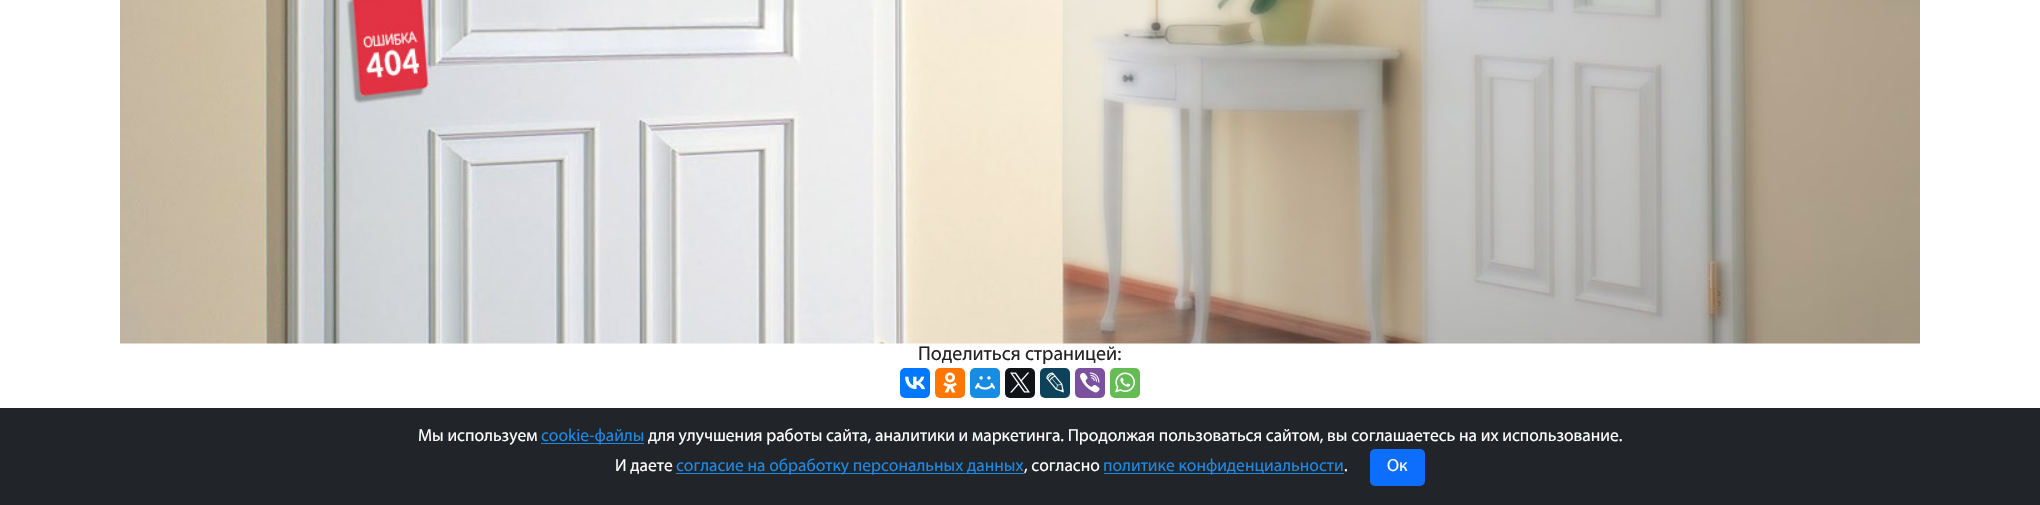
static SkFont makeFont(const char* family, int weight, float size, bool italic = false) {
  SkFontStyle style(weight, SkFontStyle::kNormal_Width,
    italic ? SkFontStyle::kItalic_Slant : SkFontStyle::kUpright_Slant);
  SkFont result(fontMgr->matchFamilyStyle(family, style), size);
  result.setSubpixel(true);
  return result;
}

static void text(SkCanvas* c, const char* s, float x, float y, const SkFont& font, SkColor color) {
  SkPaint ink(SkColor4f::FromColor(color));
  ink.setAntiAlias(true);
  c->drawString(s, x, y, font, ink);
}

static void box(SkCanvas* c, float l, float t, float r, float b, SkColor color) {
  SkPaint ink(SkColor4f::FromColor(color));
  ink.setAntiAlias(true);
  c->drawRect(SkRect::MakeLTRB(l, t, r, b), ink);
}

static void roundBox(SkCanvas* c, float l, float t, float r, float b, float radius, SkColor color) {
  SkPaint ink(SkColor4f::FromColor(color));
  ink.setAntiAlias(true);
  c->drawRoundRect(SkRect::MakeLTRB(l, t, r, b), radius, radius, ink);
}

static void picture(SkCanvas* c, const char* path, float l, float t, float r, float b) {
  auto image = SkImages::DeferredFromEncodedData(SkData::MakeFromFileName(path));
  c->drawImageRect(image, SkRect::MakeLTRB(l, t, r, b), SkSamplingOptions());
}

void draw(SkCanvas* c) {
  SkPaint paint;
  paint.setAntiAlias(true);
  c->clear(0xffffffff);
  picture(c, "img_01.png", 120, 0, 1920, 344);
  SkFont face1 = makeFont("Myriad", 400, 20);
  text(c, "Поделиться страницей:", 918, 360, face1, 0xff232323);
  roundBox(c, 900, 368, 930, 398, 5, 0xff0077ff);
  picture(c, "img_02.png", 905, 376, 925, 390);
  roundBox(c, 935, 368, 965, 398, 5, 0xffff7700);
  picture(c, "img_03.png", 943, 372, 957, 393);
  roundBox(c, 970, 368, 1000, 398, 5, 0xff168de2);
  picture(c, "img_04.png", 975, 376, 995, 390);
  roundBox(c, 1005, 368, 1035, 398, 5, 0xff0f1419);
  picture(c, "img_05.png", 1010, 372, 1030, 393);
  roundBox(c, 1040, 368, 1070, 398, 5, 0xff0d425a);
  picture(c, "img_06.png", 1046, 372, 1064, 393);
  roundBox(c, 1075, 368, 1105, 398, 5, 0xff7b519d);
  picture(c, "img_07.png", 1080, 372, 1100, 393);
  roundBox(c, 1110, 368, 1140, 398, 5, 0xff65bc54);
  picture(c, "img_08.png", 1115, 372, 1135, 393);
  box(c, 0, 408, 2040, 505, 0xff212529);
  SkFont face2 = makeFont("Myriad", 400, 17.5f);
  text(c, "Мы используем", 418, 441, face2, 0xffffffff);
  box(c, 541, 443, 644, 444, 0xff1e88e5);
  text(c, "cookie-файлы", 541, 441, face2, 0xff1e88e5);
  text(c, "для улучшения работы сайта, аналитики и маркетинга. Продолжая пользоваться сайтом, вы соглашаетесь на их использование.", 648, 441, face2, 0xffffffff);
  text(c, "И даете", 615, 471, face2, 0xffffffff);
  box(c, 676, 473, 1024, 474, 0xff1e88e5);
  text(c, "согласие на обработку персональных данных", 676, 471, face2, 0xff1e88e5);
  text(c, ", согласно", 1024, 471, face2, 0xffffffff);
  box(c, 1104, 473, 1344, 474, 0xff1e88e5);
  text(c, "политике конфиденциальности", 1103, 471, face2, 0xff1e88e5);
  text(c, ".", 1344, 471, face2, 0xffffffff);
  roundBox(c, 1370, 449, 1425, 486, 5, 0xff0d6efd);
  text(c, "Ок", 1387, 471, face2, 0xffffffff);
}
